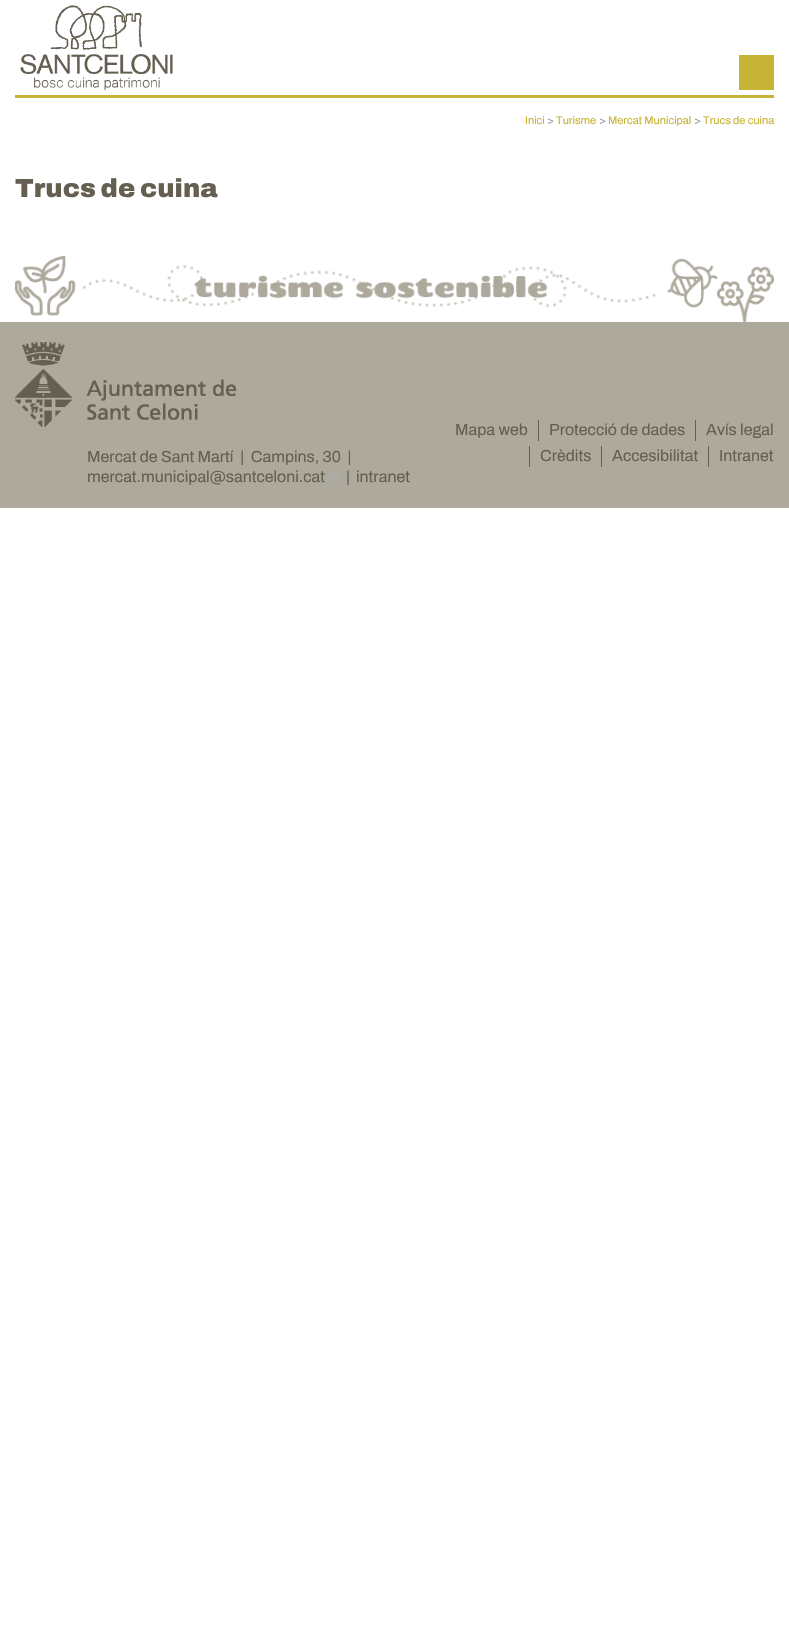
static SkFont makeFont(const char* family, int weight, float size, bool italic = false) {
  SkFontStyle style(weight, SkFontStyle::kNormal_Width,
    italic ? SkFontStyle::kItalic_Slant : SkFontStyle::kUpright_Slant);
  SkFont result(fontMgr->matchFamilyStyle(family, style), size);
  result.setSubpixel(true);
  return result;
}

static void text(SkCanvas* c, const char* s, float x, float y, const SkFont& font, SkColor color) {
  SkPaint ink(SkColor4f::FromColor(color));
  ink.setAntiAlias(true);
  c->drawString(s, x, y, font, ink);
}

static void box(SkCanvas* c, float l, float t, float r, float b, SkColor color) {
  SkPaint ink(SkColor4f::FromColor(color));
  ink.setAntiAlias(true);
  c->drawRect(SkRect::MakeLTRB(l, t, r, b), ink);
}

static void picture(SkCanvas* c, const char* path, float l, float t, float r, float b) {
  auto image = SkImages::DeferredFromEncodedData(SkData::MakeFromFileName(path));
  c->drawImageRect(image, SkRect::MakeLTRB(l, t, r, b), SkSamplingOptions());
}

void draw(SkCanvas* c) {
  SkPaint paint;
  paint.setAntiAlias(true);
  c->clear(0xffffffff);
  box(c, 15, 95, 774, 98, 0xffc6b436);
  box(c, 20, 5, 173, 90, 0xff645f51);
  picture(c, "img_01.png", 20, 5, 173, 90);
  box(c, 739, 55, 774, 90, 0xffc6b436);
  SkFont face1 = makeFont("Archivo", 400, 11);
  text(c, "Inici", 525, 124, face1, 0xffc6b436);
  text(c, ">", 547, 124, face1, 0xff999999);
  text(c, "Turisme", 556, 124, face1, 0xffc6b436);
  text(c, ">", 599, 124, face1, 0xff999999);
  text(c, "Mercat Municipal", 608, 124, face1, 0xffc6b436);
  text(c, ">", 694, 124, face1, 0xff999999);
  text(c, "Trucs de cuina", 703, 124, face1, 0xffc6b436);
  SkFont face2 = makeFont("Archivo", 900, 26);
  text(c, "Trucs de cuina", 15, 197, face2, 0xff645f51);
  picture(c, "img_02.png", 15, 256, 774, 322);
  box(c, 0, 322, 789, 508, 0xffaea99d);
  SkFont face3 = makeFont("Archivo", 400, 16);
  text(c, "Mapa web", 455, 435, face3, 0xff645f51);
  box(c, 538, 420, 539, 441, 0xff645f51);
  text(c, "Protecció de dades", 549, 435, face3, 0xff645f51);
  box(c, 695, 420, 696, 441, 0xff645f51);
  text(c, "Avís legal", 706, 435, face3, 0xff645f51);
  box(c, 529, 446, 530, 467, 0xff645f51);
  text(c, "Crèdits", 540, 461, face3, 0xff645f51);
  box(c, 601, 446, 602, 467, 0xff645f51);
  text(c, "Accesibilitat", 612, 461, face3, 0xff645f51);
  box(c, 708, 446, 709, 467, 0xff645f51);
  text(c, "Intranet", 719, 461, face3, 0xff645f51);
  box(c, 15, 342, 236, 427, 0xff645f51);
  picture(c, "img_03.png", 15, 342, 236, 427);
  text(c, "Mercat de Sant Martí  |  Campins, 30  |", 87, 462, face3, 0xff645f51);
  text(c, "mercat.municipal@santceloni.cat", 87, 482, face3, 0xff645f51);
  picture(c, "img_04.png", 328, 474, 338, 482);
  text(c, "|", 346, 482, face3, 0xff645f51);
  text(c, "intranet", 356, 482, face3, 0xff645f51);
}
